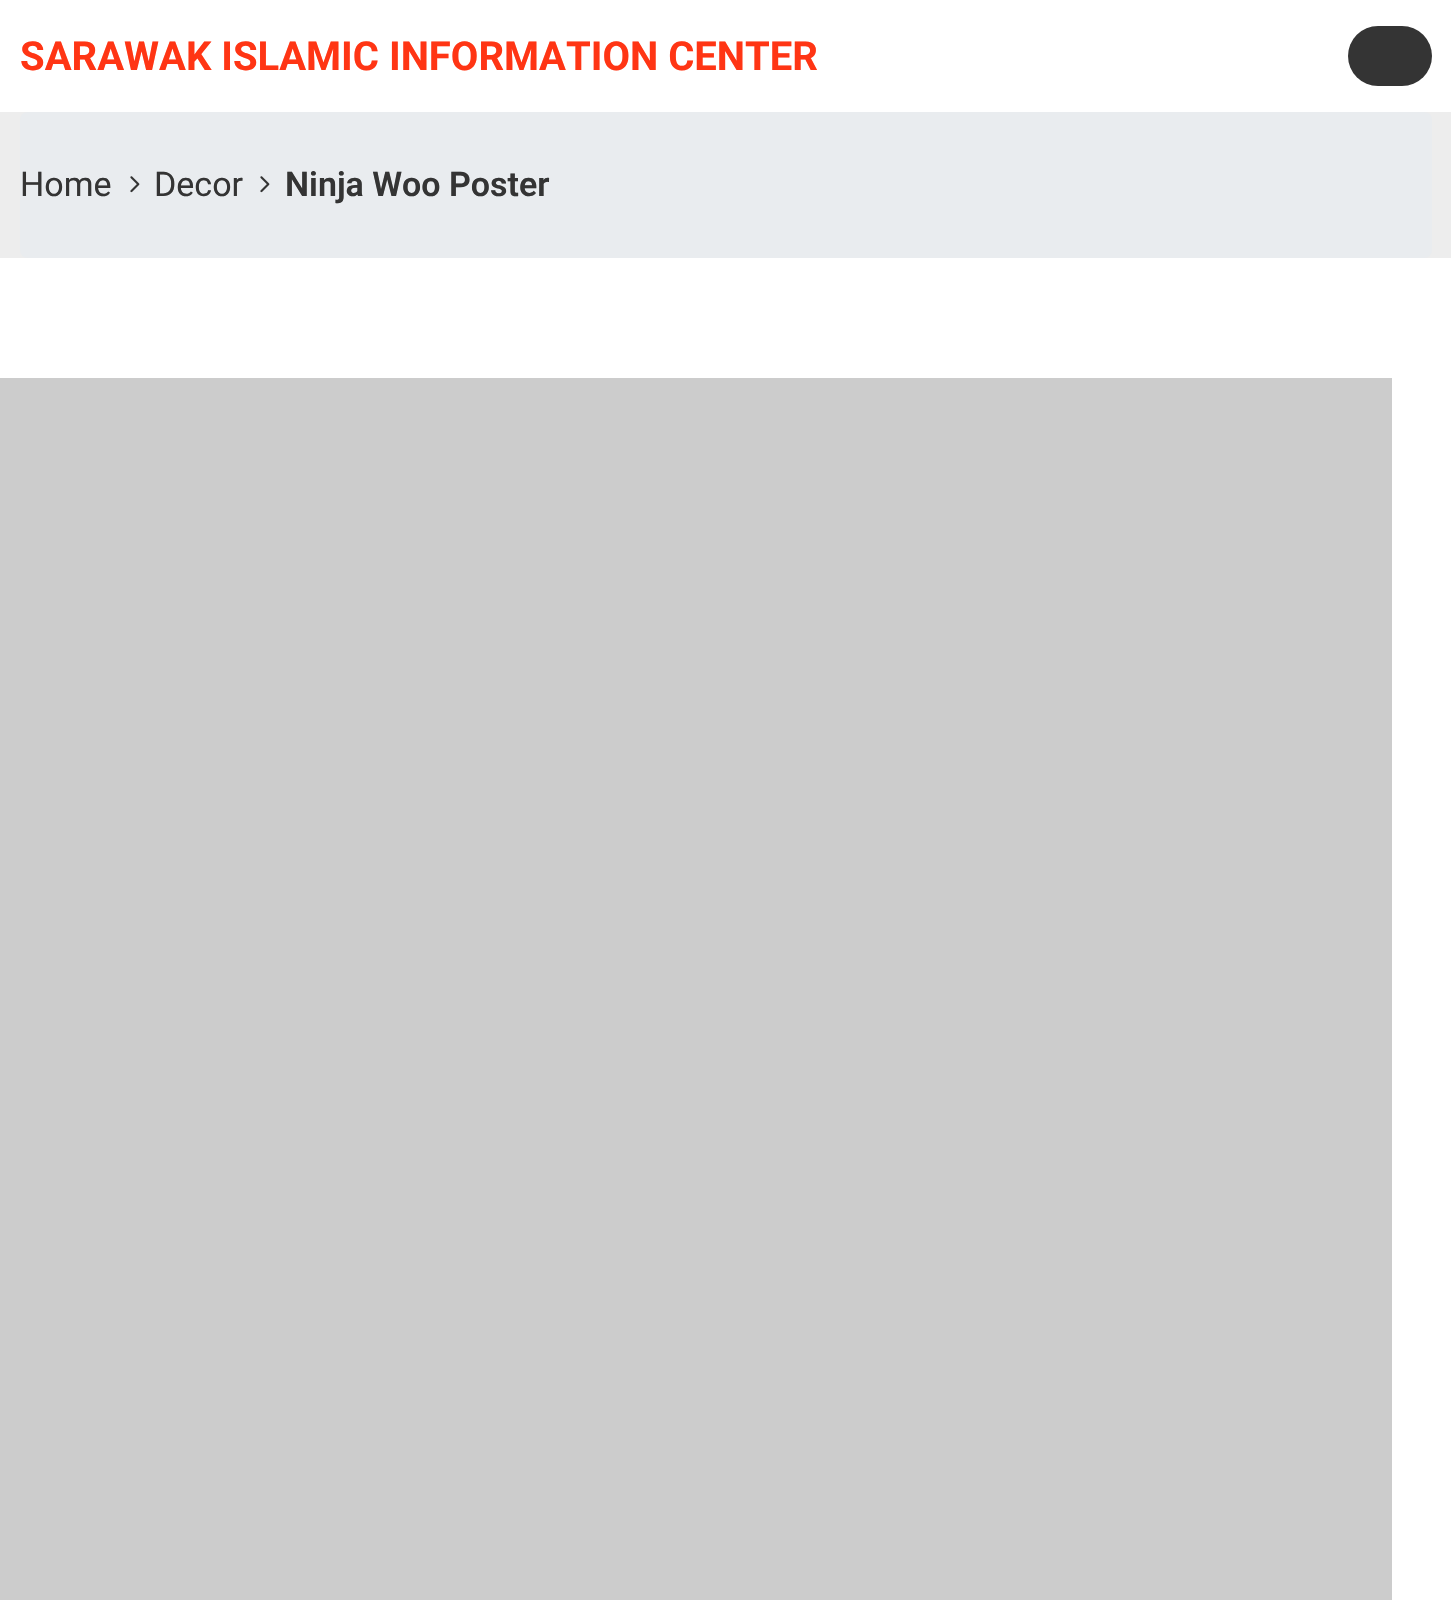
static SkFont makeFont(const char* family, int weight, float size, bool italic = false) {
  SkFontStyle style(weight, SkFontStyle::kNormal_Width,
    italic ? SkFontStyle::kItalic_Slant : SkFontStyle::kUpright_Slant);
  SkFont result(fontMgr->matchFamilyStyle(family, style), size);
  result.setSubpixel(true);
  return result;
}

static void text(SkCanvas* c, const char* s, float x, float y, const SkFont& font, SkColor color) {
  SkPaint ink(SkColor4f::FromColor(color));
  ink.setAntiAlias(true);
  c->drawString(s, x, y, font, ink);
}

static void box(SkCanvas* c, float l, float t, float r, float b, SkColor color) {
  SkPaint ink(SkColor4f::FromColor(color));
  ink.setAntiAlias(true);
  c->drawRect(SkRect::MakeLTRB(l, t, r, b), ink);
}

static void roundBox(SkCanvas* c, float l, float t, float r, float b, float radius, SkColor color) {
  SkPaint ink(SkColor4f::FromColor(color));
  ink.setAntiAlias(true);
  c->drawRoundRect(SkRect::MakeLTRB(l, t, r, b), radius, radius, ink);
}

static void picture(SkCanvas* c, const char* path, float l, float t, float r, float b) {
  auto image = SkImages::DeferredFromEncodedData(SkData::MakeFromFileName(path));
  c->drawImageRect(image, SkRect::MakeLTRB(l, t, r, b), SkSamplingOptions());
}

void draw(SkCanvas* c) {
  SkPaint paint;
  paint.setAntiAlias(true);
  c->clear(0xffffffff);
  SkFont face1 = makeFont("Roboto", 700, 40);
  text(c, "SARAWAK ISLAMIC INFORMATION CENTER", 20, 70, face1, 0xffff3514);
  roundBox(c, 1348, 26, 1432, 86, 30, 0xff343434);
  box(c, 0, 112, 1451, 258, 0xffededed);
  roundBox(c, 20, 112, 1432, 258, 8, 0xffe9ecef);
  SkFont face2 = makeFont("Roboto", 400, 34);
  text(c, "Home", 20, 196, face2, 0xff343434);
  picture(c, "img_01.png", 130, 176, 140, 193);
  text(c, "Decor", 154, 196, face2, 0xff343434);
  picture(c, "img_01.png", 260, 176, 270, 193);
  SkFont face3 = makeFont("Roboto", 600, 34);
  text(c, "Ninja Woo Poster", 285, 196, face3, 0xff343434);
  box(c, 0, 378, 1392, 1600, 0xffcccccc);
}
